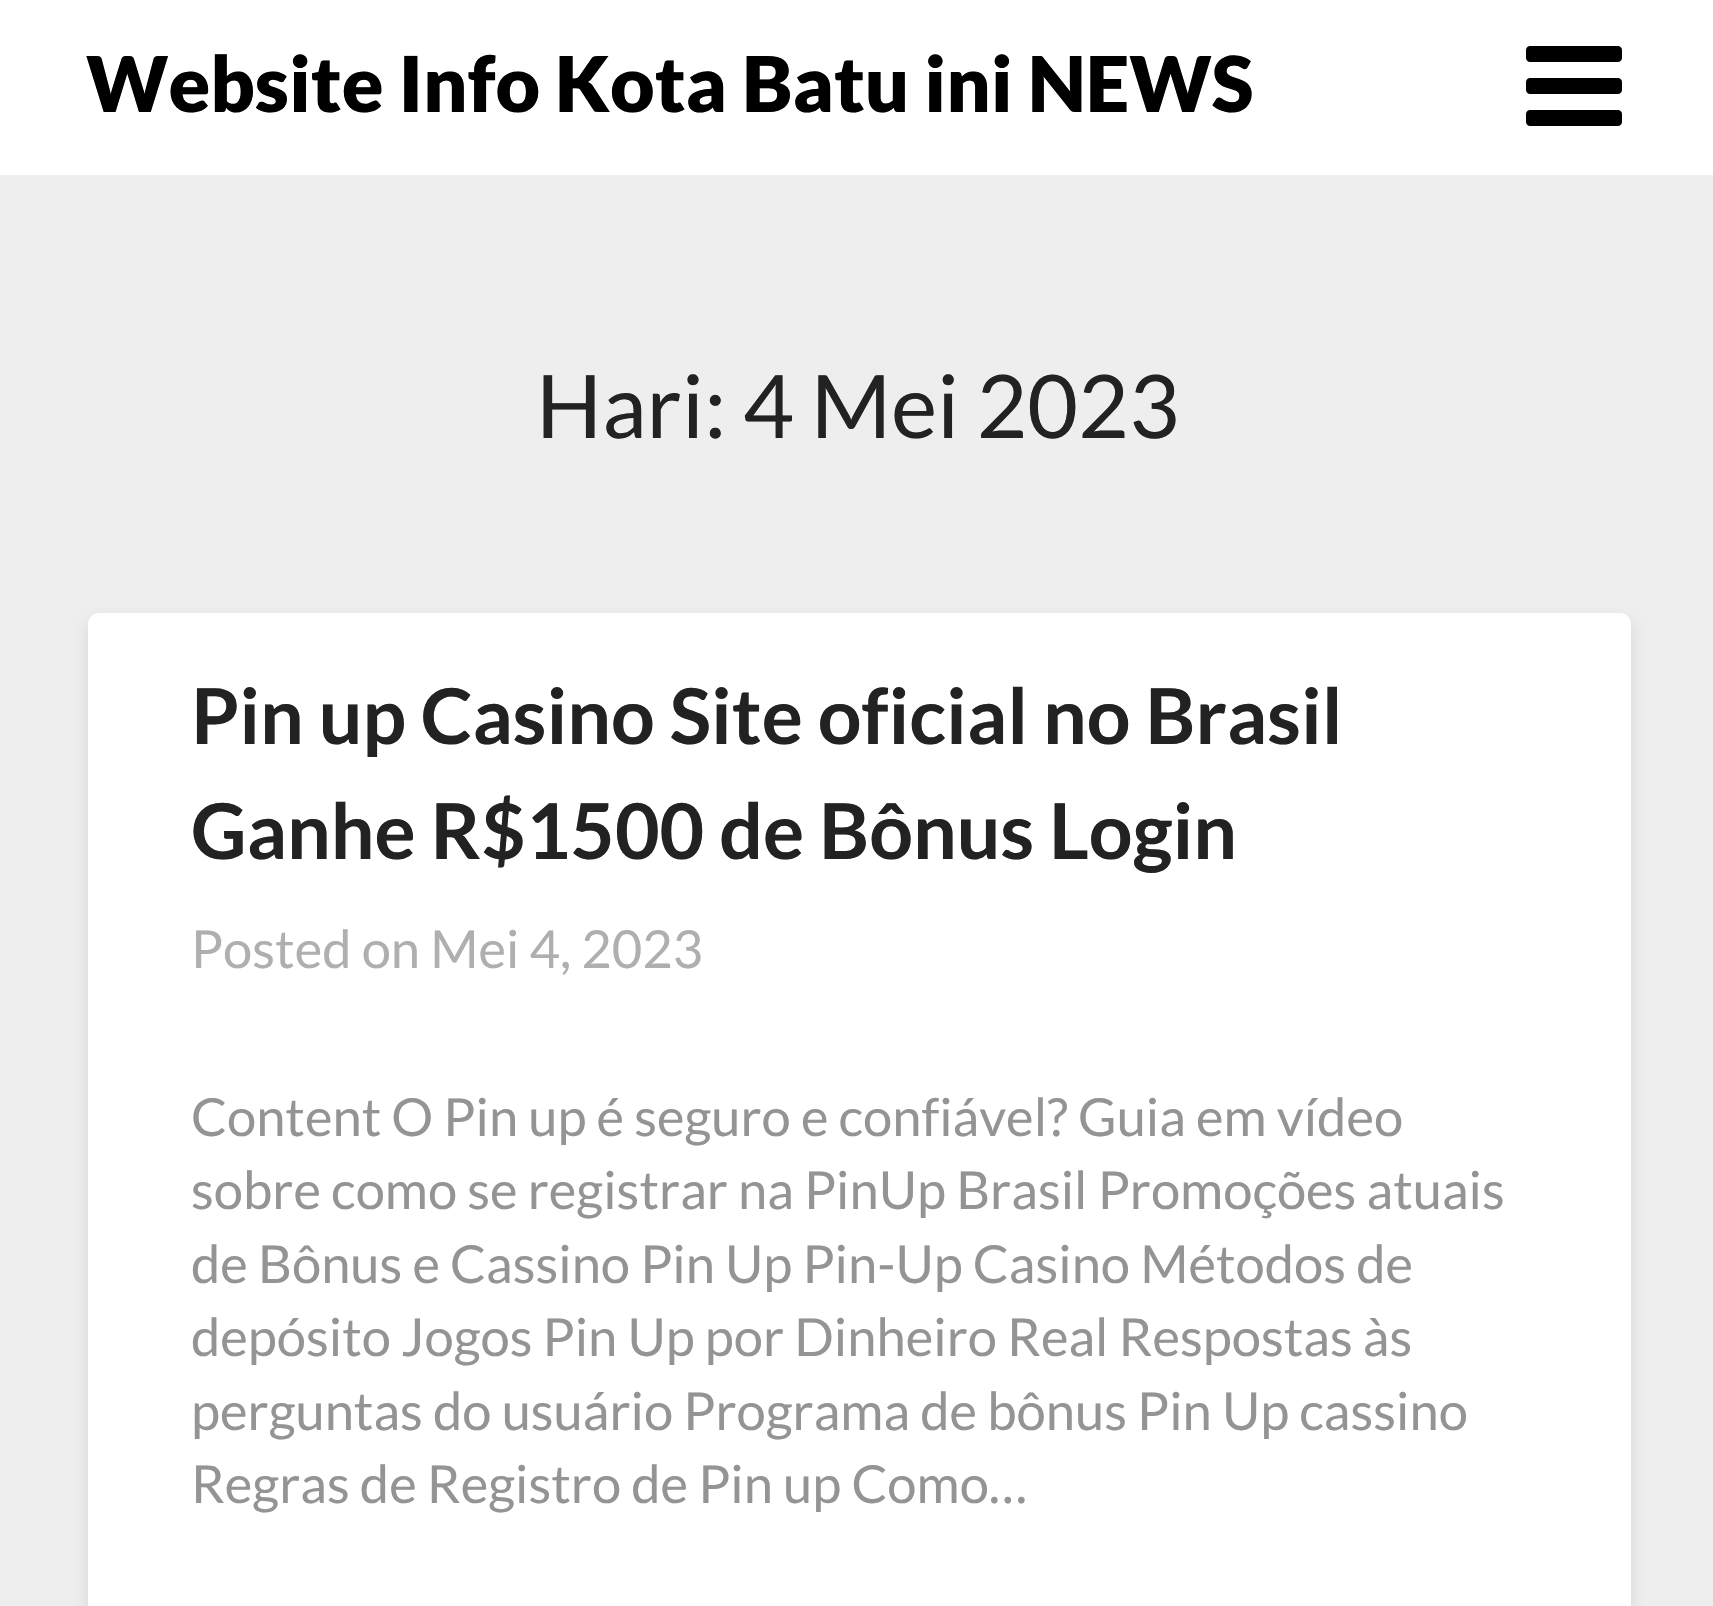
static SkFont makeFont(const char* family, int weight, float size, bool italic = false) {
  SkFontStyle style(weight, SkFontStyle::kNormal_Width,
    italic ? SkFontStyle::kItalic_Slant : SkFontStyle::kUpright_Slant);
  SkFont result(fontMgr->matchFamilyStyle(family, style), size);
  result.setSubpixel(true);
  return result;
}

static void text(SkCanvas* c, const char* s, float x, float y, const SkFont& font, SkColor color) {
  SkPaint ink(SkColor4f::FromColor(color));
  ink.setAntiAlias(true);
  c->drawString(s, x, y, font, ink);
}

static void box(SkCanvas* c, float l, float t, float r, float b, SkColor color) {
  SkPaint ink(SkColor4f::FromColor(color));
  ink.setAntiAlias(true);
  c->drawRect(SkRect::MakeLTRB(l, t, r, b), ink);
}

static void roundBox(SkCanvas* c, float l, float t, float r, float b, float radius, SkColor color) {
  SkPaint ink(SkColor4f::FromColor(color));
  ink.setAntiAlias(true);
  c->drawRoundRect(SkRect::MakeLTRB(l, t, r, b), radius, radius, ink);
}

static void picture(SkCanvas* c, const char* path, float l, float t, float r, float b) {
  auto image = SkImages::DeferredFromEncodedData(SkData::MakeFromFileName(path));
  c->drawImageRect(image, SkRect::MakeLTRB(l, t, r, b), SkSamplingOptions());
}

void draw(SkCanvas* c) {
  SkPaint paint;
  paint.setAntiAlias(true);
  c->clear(0xffeeeeee);
  box(c, 0, 0, 1713, 175, 0xffffffff);
  SkFont face1 = makeFont("Lato", 900, 77);
  text(c, "Website Info Kota Batu ini NEWS", 86, 112, face1, 0xff000000);
  picture(c, "img_01.png", 1526, 46, 1622, 126);
  SkFont face2 = makeFont("Lato", 400, 87.5f);
  text(c, "Hari: 4 Mei 2023", 536, 438, face2, 0xff222222);
  paint.setColor(0x1a000000);
  paint.setMaskFilter(SkMaskFilter::MakeBlur(kNormal_SkBlurStyle, 7));
  c->drawRoundRect(SkRect::MakeLTRB(88, 620, 1631, 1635), 11, 11, paint);
  paint.setMaskFilter(nullptr);
  roundBox(c, 88, 613, 1631, 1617, 11, 0xffffffff);
  SkFont face3 = makeFont("Lato", 700, 77);
  text(c, "Pin up Casino Site oficial no Brasil", 191, 744, face3, 0xff222222);
  text(c, "Ganhe R$1500 de Bônus Login", 191, 859, face3, 0xff222222);
  SkFont face4 = makeFont("Lato", 400, 52.5f);
  text(c, "Posted on Mei 4, 2023", 191, 968, face4, 0xffafafaf);
  text(c, "Content O Pin up é seguro e confiável? Guia em vídeo", 191, 1136, face4, 0xff949494);
  text(c, "sobre como se registrar na PinUp Brasil Promoções atuais", 191, 1209, face4, 0xff949494);
  text(c, "de Bônus e Cassino Pin Up Pin-Up Casino Métodos de", 191, 1283, face4, 0xff949494);
  text(c, "depósito Jogos Pin Up por Dinheiro Real Respostas às", 191, 1356, face4, 0xff949494);
  text(c, "perguntas do usuário Programa de bônus Pin Up cassino", 191, 1430, face4, 0xff949494);
  text(c, "Regras de Registro de Pin up Como…", 191, 1503, face4, 0xff949494);
}
